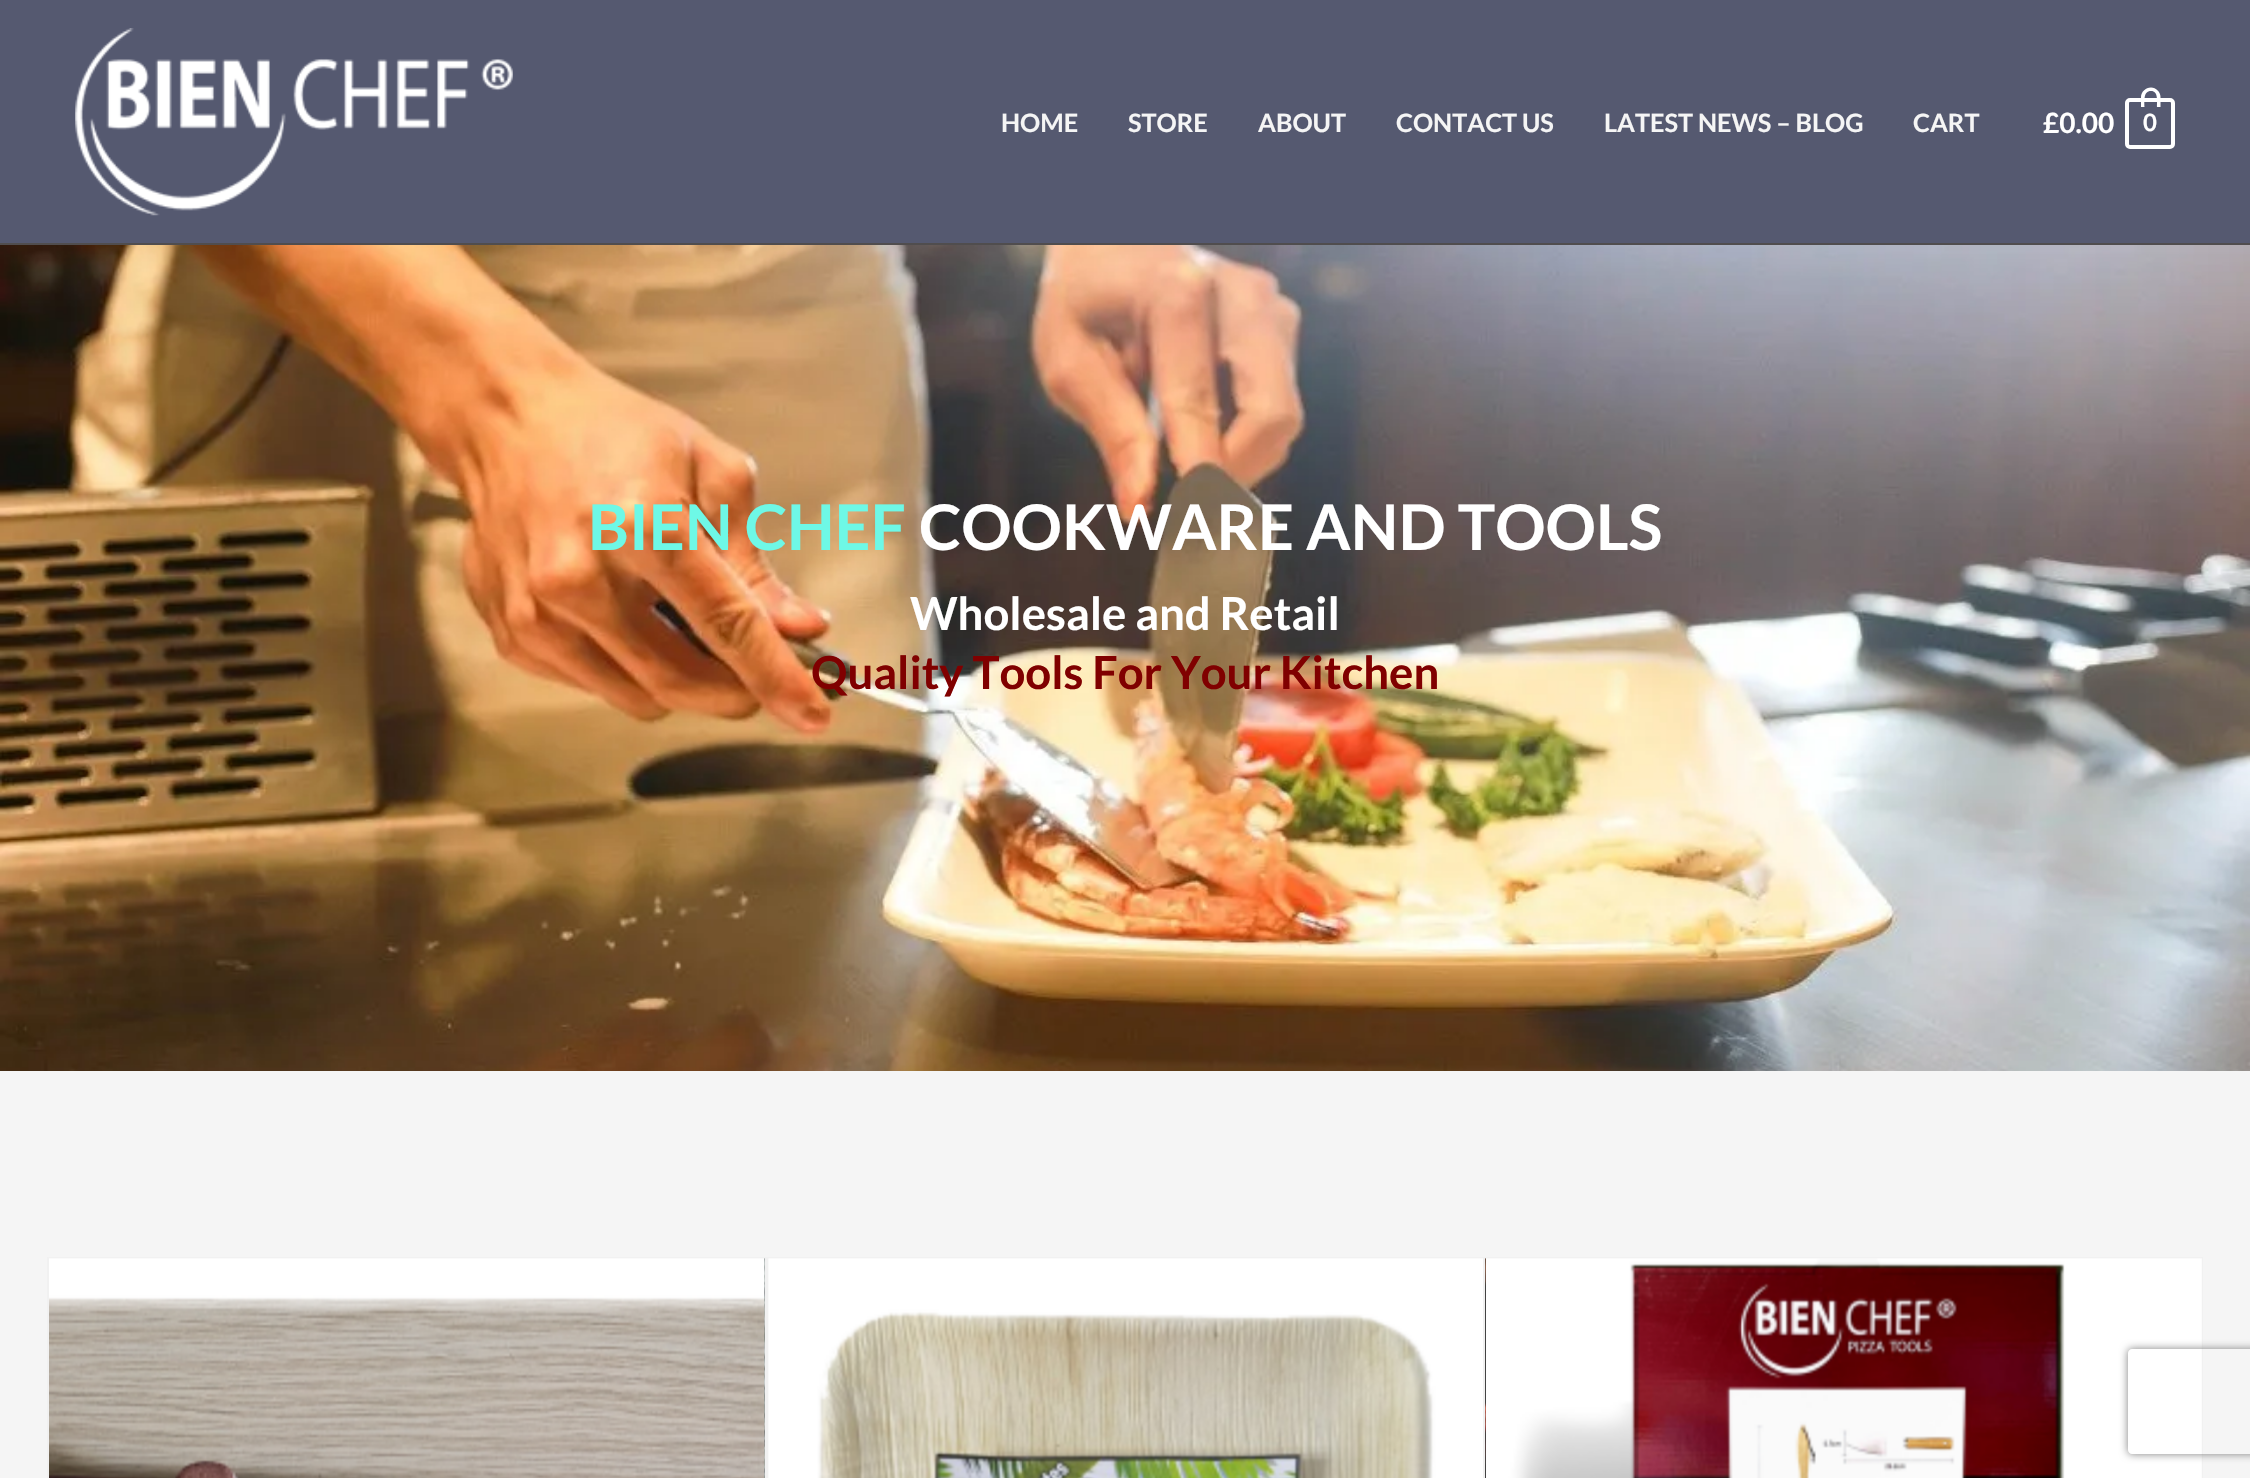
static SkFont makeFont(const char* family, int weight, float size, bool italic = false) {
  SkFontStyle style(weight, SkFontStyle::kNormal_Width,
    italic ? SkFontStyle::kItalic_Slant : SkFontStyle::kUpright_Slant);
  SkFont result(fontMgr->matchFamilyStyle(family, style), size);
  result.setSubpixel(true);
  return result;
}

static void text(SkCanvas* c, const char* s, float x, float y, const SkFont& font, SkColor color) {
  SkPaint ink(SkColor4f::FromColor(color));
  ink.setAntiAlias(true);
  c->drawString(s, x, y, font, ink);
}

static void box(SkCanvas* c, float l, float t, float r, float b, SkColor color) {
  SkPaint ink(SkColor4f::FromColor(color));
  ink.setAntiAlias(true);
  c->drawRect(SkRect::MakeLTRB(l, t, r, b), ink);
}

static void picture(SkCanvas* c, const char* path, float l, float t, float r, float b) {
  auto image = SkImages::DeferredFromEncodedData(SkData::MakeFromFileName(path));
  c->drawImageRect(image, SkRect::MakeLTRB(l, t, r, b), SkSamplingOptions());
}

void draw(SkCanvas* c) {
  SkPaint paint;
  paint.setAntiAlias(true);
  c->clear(0xfff5f5f5);
  box(c, 0, 0, 2250, 243, 0xff555970);
  box(c, 0, 243, 2250, 245, 0xff504d4e);
  picture(c, "img_01.png", 75, 28, 513, 216);
  SkFont face1 = makeFont("Lato", 700, 25.25f);
  text(c, "HOME", 1001, 132, face1, 0xfff5f5f5);
  text(c, "STORE", 1128, 132, face1, 0xfff5f5f5);
  text(c, "ABOUT", 1258, 132, face1, 0xfff5f5f5);
  text(c, "CONTACT US", 1396, 132, face1, 0xfff5f5f5);
  text(c, "LATEST NEWS – BLOG", 1604, 132, face1, 0xfff5f5f5);
  text(c, "CART", 1913, 132, face1, 0xfff5f5f5);
  SkFont face2 = makeFont("Lato", 700, 28);
  text(c, "£0.00", 2043, 133, face2, 0xffffffff);
  paint.setStyle(SkPaint::kStroke_Style);
  paint.setStrokeWidth(4);
  paint.setColor(0xffffffff);
  c->drawRoundRect(SkRect::MakeLTRB(2127, 100, 2173, 147), 3, 3, paint);
  paint.setStyle(SkPaint::kFill_Style);
  c->drawPath(SkPathBuilder(SkPathFillType::kEvenOdd).moveTo(2151, 87.5f).cubicTo(2156, 87.5f, 2160.5f, 92, 2160.5f, 97).lineTo(2160.5f, 107).lineTo(2141, 107).lineTo(2141, 97).cubicTo(2141, 92, 2145.5f, 87.5f, 2151, 87.5f).close().moveTo(2151, 91).cubicTo(2158.5f, 91, 2157, 101.5f, 2157, 107).lineTo(2144.5f, 107).cubicTo(2144.5f, 101.5f, 2143, 91, 2151, 91).close().detach(), paint);
  SkFont face3 = makeFont("Lato", 700, 24);
  text(c, "0", 2143, 131, face3, 0xffffffff);
  picture(c, "img_02.png", 0, 245, 2250, 1071);
  SkFont face4 = makeFont("Lato", 700, 63);
  text(c, "BIEN CHEF", 588, 550, face4, 0xff6ef8e6);
  text(c, "COOKWARE AND TOOLS", 919, 550, face4, 0xffffffff);
  SkFont face5 = makeFont("Lato", 700, 45.5f);
  text(c, "Wholesale and Retail", 910, 630, face5, 0xffffffff);
  text(c, "Quality Tools For Your Kitchen", 811, 689, face5, 0xff800000);
  paint.setStyle(SkPaint::kStroke_Style);
  paint.setStrokeWidth(2);
  paint.setColor(0xfff1f1f1);
  c->drawRect(SkRect::MakeLTRB(48, 1258, 766, 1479), paint);
  picture(c, "img_03.png", 49, 1258, 765, 1478);
  picture(c, "img_04.png", 764, 1258, 765, 1478);
  c->drawRect(SkRect::MakeLTRB(768, 1258, 1483, 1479), paint);
  picture(c, "img_05.png", 768, 1258, 1483, 1478);
  c->drawRect(SkRect::MakeLTRB(1485, 1258, 2202, 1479), paint);
  picture(c, "img_06.png", 1485, 1258, 1486, 1478);
  picture(c, "img_07.png", 1486, 1258, 2202, 1478);
  c->save();
  c->clipPath(SkPathBuilder(SkPathFillType::kEvenOdd).moveTo(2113, 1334).lineTo(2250, 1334).lineTo(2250, 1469).lineTo(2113, 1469).close().moveTo(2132, 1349).lineTo(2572, 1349).cubicTo(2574, 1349, 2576, 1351, 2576, 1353).lineTo(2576, 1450).cubicTo(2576, 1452, 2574, 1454, 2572, 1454).lineTo(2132, 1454).cubicTo(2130, 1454, 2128, 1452, 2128, 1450).lineTo(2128, 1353).cubicTo(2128, 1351, 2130, 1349, 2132, 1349).close().detach(), true);
  paint.setStyle(SkPaint::kFill_Style);
  paint.setColor(0xff808080);
  paint.setMaskFilter(SkMaskFilter::MakeBlur(kNormal_SkBlurStyle, 4.5f));
  c->drawRoundRect(SkRect::MakeLTRB(2128, 1349, 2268, 1454), 4, 4, paint);
  paint.setMaskFilter(nullptr);
  c->restore();
}
